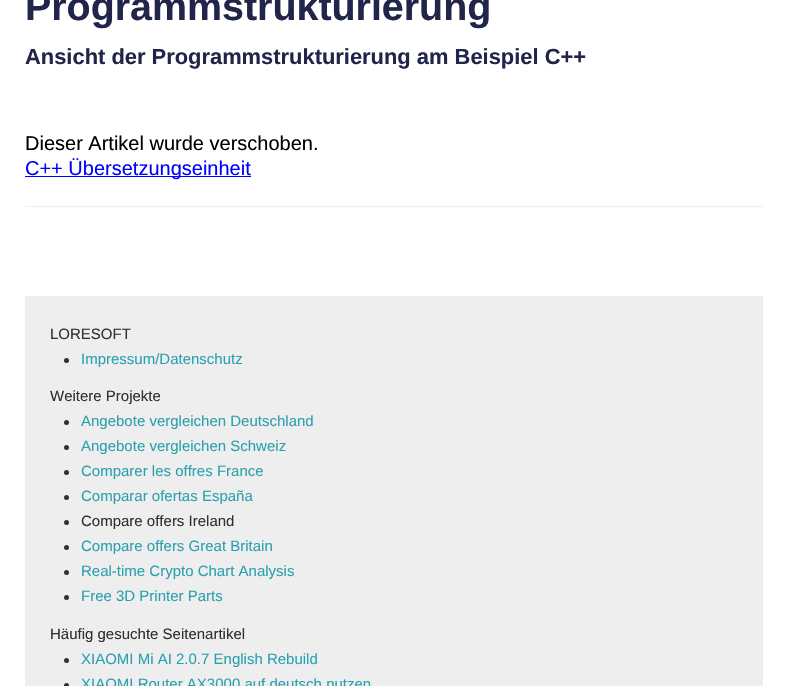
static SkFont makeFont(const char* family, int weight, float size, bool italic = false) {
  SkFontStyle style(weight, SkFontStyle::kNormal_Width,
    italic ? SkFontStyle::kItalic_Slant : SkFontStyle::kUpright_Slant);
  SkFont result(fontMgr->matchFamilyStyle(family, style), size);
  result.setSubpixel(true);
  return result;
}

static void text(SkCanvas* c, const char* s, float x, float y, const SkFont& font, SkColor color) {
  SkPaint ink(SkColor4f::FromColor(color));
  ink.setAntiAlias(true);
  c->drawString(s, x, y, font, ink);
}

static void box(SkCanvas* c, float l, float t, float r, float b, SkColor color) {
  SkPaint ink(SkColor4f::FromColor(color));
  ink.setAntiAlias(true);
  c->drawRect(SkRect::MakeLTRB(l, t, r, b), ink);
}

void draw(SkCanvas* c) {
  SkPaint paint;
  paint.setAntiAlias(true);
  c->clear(0xffffffff);
  SkFont face1 = makeFont("Liberation Sans", 700, 39.4f);
  text(c, "Programmstrukturierung", 25, 20, face1, 0xff202549);
  SkFont face2 = makeFont("Liberation Sans", 700, 21.9f);
  text(c, "Ansicht der Programmstrukturierung am Beispiel C++", 25, 64, face2, 0xff202549);
  SkFont face3 = makeFont("Liberation Sans", 400, 20);
  text(c, "Dieser Artikel wurde verschoben.", 25, 150, face3, 0xff000000);
  box(c, 25, 176, 251, 177, 0xff0000ff);
  text(c, "C++ Übersetzungseinheit", 25, 175, face3, 0xff0000ff);
  box(c, 25, 206, 763, 207, 0xffeeeeee);
  box(c, 25, 296, 763, 686, 0xffeeeeee);
  SkFont face4 = makeFont("Liberation Sans", 400, 15);
  text(c, "LORESOFT", 50, 339, face4, 0xff303030);
  paint.setColor(0xff303030);
  c->drawCircle(66.5f, 360.5f, 2.5f, paint);
  text(c, "Impressum/Datenschutz", 81, 364, face4, 0xff2ba1af);
  text(c, "Weitere Projekte", 50, 401, face4, 0xff303030);
  c->drawCircle(66.5f, 422.5f, 2.5f, paint);
  text(c, "Angebote vergleichen Deutschland", 81, 426, face4, 0xff2ba1af);
  c->drawCircle(66.5f, 447.5f, 2.5f, paint);
  text(c, "Angebote vergleichen Schweiz", 81, 451, face4, 0xff2ba1af);
  c->drawCircle(66.5f, 472.5f, 2.5f, paint);
  text(c, "Comparer les offres France", 81, 476, face4, 0xff2ba1af);
  c->drawCircle(66.5f, 497.5f, 2.5f, paint);
  text(c, "Comparar ofertas España", 81, 501, face4, 0xff2ba1af);
  c->drawCircle(66.5f, 522.5f, 2.5f, paint);
  text(c, "Compare offers Ireland", 81, 526, face4, 0xff303030);
  c->drawCircle(66.5f, 547.5f, 2.5f, paint);
  text(c, "Compare offers Great Britain", 81, 551, face4, 0xff2ba1af);
  c->drawCircle(66.5f, 572.5f, 2.5f, paint);
  text(c, "Real-time Crypto Chart Analysis", 81, 576, face4, 0xff2ba1af);
  c->drawCircle(66.5f, 597.5f, 2.5f, paint);
  text(c, "Free 3D Printer Parts", 81, 601, face4, 0xff2ba1af);
  text(c, "Häufig gesuchte Seitenartikel", 50, 639, face4, 0xff303030);
  c->drawCircle(66.5f, 660.5f, 2.5f, paint);
  text(c, "XIAOMI Mi AI 2.0.7 English Rebuild", 81, 664, face4, 0xff2ba1af);
  c->drawCircle(66.5f, 685.5f, 2.5f, paint);
  text(c, "XIAOMI Router AX3000 auf deutsch nutzen", 81, 689, face4, 0xff2ba1af);
}
